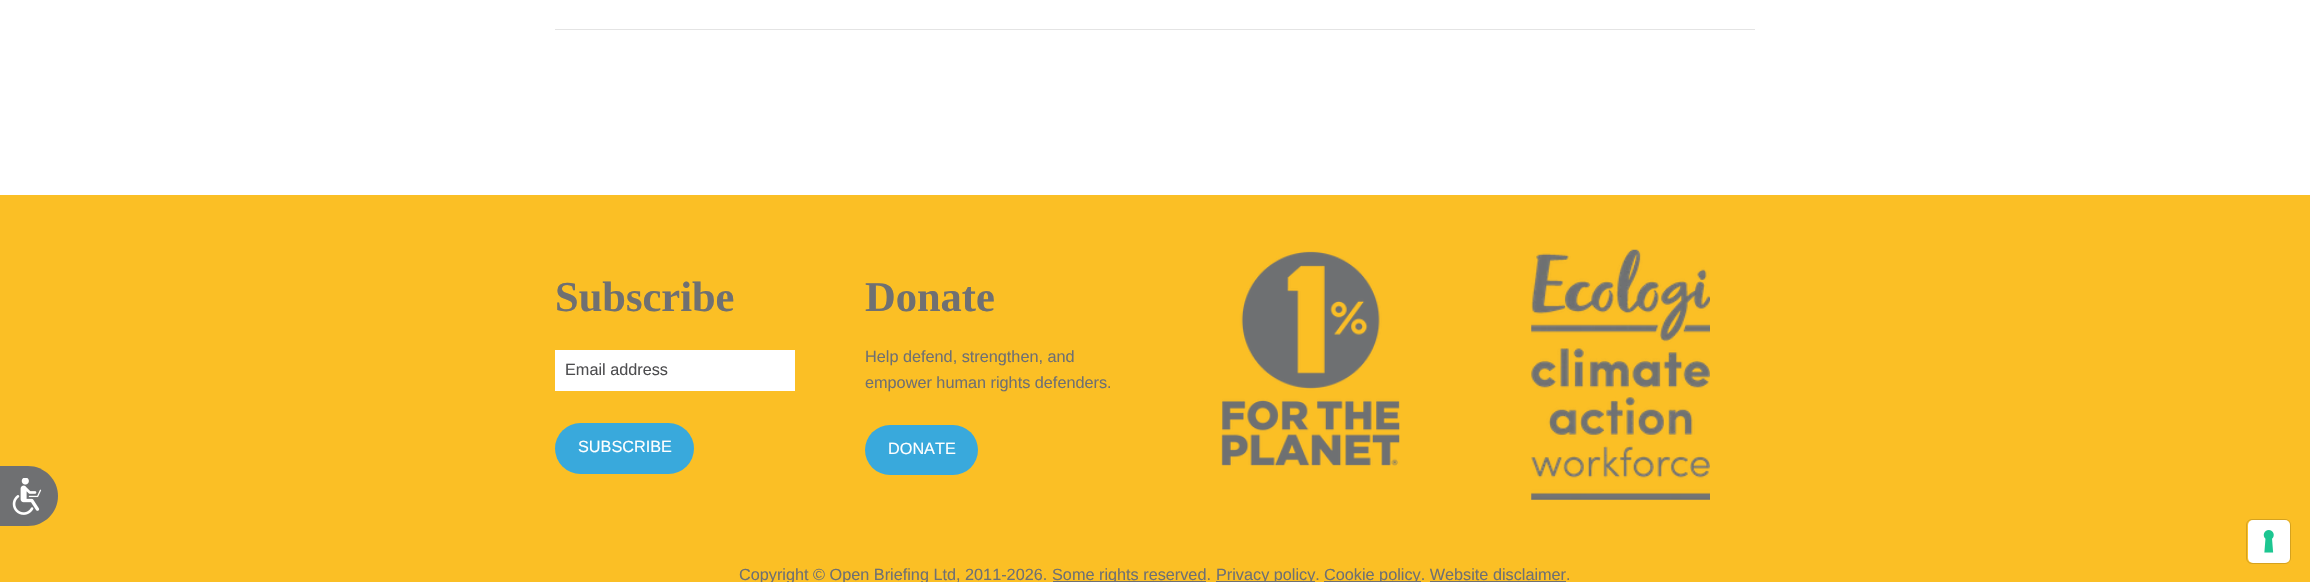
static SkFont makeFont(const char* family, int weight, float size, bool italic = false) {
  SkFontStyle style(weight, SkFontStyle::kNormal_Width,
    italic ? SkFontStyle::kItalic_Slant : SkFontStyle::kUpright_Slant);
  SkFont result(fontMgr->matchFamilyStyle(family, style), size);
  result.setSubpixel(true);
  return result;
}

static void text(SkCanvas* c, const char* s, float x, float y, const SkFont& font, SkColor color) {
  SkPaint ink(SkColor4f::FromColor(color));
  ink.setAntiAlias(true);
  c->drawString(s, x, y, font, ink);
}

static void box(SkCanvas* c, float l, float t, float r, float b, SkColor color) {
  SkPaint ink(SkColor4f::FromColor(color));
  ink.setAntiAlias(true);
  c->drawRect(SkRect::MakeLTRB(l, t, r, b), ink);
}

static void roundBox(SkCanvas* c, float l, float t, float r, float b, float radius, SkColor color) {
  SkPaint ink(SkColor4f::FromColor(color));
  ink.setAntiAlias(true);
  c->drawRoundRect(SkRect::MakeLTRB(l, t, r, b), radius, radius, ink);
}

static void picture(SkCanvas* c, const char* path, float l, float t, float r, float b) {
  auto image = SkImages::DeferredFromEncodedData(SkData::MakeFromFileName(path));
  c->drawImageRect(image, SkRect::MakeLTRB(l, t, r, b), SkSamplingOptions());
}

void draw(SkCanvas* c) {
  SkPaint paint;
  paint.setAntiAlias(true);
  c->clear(0xffffffff);
  box(c, 0, 195, 2310, 582, 0xfffbbf25);
  paint.setColor(0xff6f7072);
  c->drawPath(SkPathBuilder().moveTo(0, 466).lineTo(28, 466).cubicTo(44.5f, 466, 58, 479.5f, 58, 496).cubicTo(58, 512.5f, 44.5f, 526, 28, 526).lineTo(0, 526).close().detach(), paint);
  picture(c, "img_01.png", 12, 478, 42, 515);
  box(c, 555, 29, 1755, 30, 0xffe4e4e4);
  SkFont face1 = makeFont("Liberation Serif", 700, 42.5f);
  text(c, "Subscribe", 555, 311, face1, 0xff6f7072);
  box(c, 555, 350, 795, 391, 0xffffffff);
  SkFont face2 = makeFont("Liberation Sans", 400, 16.25f);
  text(c, "Email address", 565, 375, face2, 0xff4d4d4f);
  roundBox(c, 555, 423, 694, 474, 25.5f, 0xff39a9dc);
  text(c, "SUBSCRIBE", 578, 452, face2, 0xffffffff);
  text(c, "Donate", 865, 311, face1, 0xff6f7072);
  text(c, "Help defend, strengthen, and", 865, 362, face2, 0xff6f7072);
  text(c, "empower human rights defenders.", 865, 388, face2, 0xff6f7072);
  roundBox(c, 865, 425, 978, 475, 25, 0xff39a9dc);
  text(c, "DONATE", 888, 454, face2, 0xffffffff);
  picture(c, "img_02.png", 1221, 251, 1400, 466);
  picture(c, "img_03.png", 1531, 249, 1710, 500);
  text(c, "Copyright © Open Briefing Ltd, 2011-2026.", 739, 580, face2, 0xff6f7072);
  box(c, 1053, 581, 1206, 582, 0xff6f7072);
  text(c, "Some rights reserved.", 1052, 580, face2, 0xff6f7072);
  box(c, 1216, 581, 1315, 582, 0xff6f7072);
  text(c, "Privacy policy.", 1216, 580, face2, 0xff6f7072);
  box(c, 1324, 581, 1421, 582, 0xff6f7072);
  text(c, "Cookie policy. Website disclaimer.", 1324, 580, face2, 0xff6f7072);
  box(c, 1430, 581, 1566, 582, 0xff6f7072);
  paint.setStyle(SkPaint::kStroke_Style);
  paint.setStrokeWidth(1);
  paint.setColor(0xffd5a21f);
  c->drawRoundRect(SkRect::MakeLTRB(2246.5f, 519.5f, 2290.5f, 563.5f), 5.5f, 5.5f, paint);
  roundBox(c, 2248, 520, 2290, 563, 5, 0xffffffff);
  picture(c, "img_04.png", 2263, 530, 2274, 553);
}
